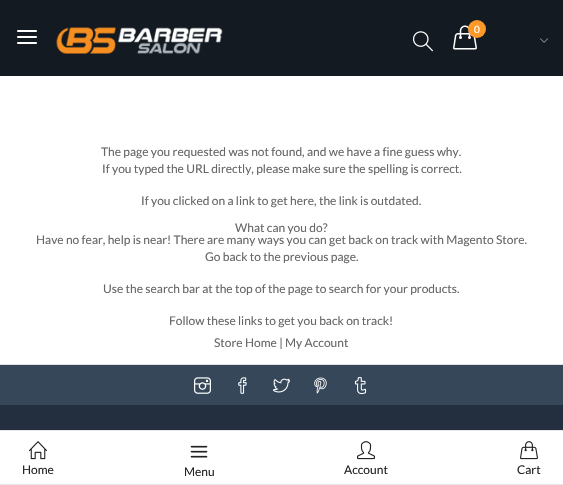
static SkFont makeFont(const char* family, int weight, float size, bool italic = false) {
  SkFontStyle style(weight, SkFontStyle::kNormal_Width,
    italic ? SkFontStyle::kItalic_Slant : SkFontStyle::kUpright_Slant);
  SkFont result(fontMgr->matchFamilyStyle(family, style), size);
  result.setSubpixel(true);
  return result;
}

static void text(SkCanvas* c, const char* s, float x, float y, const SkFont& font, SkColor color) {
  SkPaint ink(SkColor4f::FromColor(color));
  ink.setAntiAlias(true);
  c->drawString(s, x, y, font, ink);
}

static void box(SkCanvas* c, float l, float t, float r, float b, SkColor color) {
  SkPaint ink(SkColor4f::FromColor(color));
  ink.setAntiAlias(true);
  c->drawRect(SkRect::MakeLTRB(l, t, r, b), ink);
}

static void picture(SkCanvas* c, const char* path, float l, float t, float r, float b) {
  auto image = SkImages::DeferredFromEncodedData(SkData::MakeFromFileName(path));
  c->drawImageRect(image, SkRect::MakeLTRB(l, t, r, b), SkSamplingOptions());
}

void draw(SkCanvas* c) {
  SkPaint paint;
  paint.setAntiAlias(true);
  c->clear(0xffffffff);
  box(c, 0, 0, 563, 76, 0xff131a22);
  picture(c, "img_01.png", 17, 30, 37, 44);
  picture(c, "img_02.png", 56, 27, 223, 54);
  picture(c, "img_03.png", 413, 31, 433, 52);
  picture(c, "img_04.png", 453, 25, 477, 50);
  paint.setColor(0xfffd9929);
  c->drawCircle(477, 29, 9, paint);
  SkFont face1 = makeFont("Lato", 400, 10);
  text(c, "0", 474, 33, face1, 0xffffffff);
  picture(c, "img_05.png", 540, 38, 548, 43);
  SkFont face2 = makeFont("Lato", 400, 12);
  text(c, "The page you requested was not found, and we have a fine guess why.", 101, 156, face2, 0xff666666);
  text(c, "If you typed the URL directly, please make sure the spelling is correct.", 102, 173, face2, 0xff666666);
  text(c, "If you clicked on a link to get here, the link is outdated.", 141, 205, face2, 0xff666666);
  text(c, "What can you do?", 235, 232, face2, 0xff666666);
  text(c, "Have no fear, help is near! There are many ways you can get back on track with Magento Store.", 36, 244, face2, 0xff666666);
  text(c, "Go back to the previous page.", 205, 261, face2, 0xff666666);
  text(c, "Use the search bar at the top of the page to search for your products.", 103, 293, face2, 0xff666666);
  text(c, "Follow these links to get you back on track!", 169, 325, face2, 0xff666666);
  text(c, "Store Home | My Account", 214, 347, face2, 0xff666666);
  box(c, 0, 364, 563, 365, 0xffe1e1e1);
  box(c, 0, 405, 563, 430, 0xff232f3e);
  box(c, 0, 365, 563, 405, 0xff37475a);
  picture(c, "img_06.png", 194, 377, 211, 394);
  picture(c, "img_07.png", 238, 377, 247, 394);
  picture(c, "img_08.png", 273, 378, 290, 393);
  picture(c, "img_09.png", 314, 377, 327, 394);
  picture(c, "img_10.png", 354, 377, 367, 395);
  box(c, 0, 430, 563, 431, 0xffe6e6e6);
  box(c, 0, 484, 563, 485, 0xffe6e6e6);
  picture(c, "img_11.png", 29, 441, 47, 460);
  text(c, "Home", 22, 474, face2, 0xff222222);
  picture(c, "img_12.png", 190, 445, 208, 458);
  text(c, "Menu", 184, 476, face2, 0xff222222);
  picture(c, "img_13.png", 357, 441, 375, 460);
  text(c, "Account", 344, 474, face2, 0xff222222);
  picture(c, "img_14.png", 520, 441, 538, 460);
  text(c, "Cart", 517, 474, face2, 0xff222222);
}
